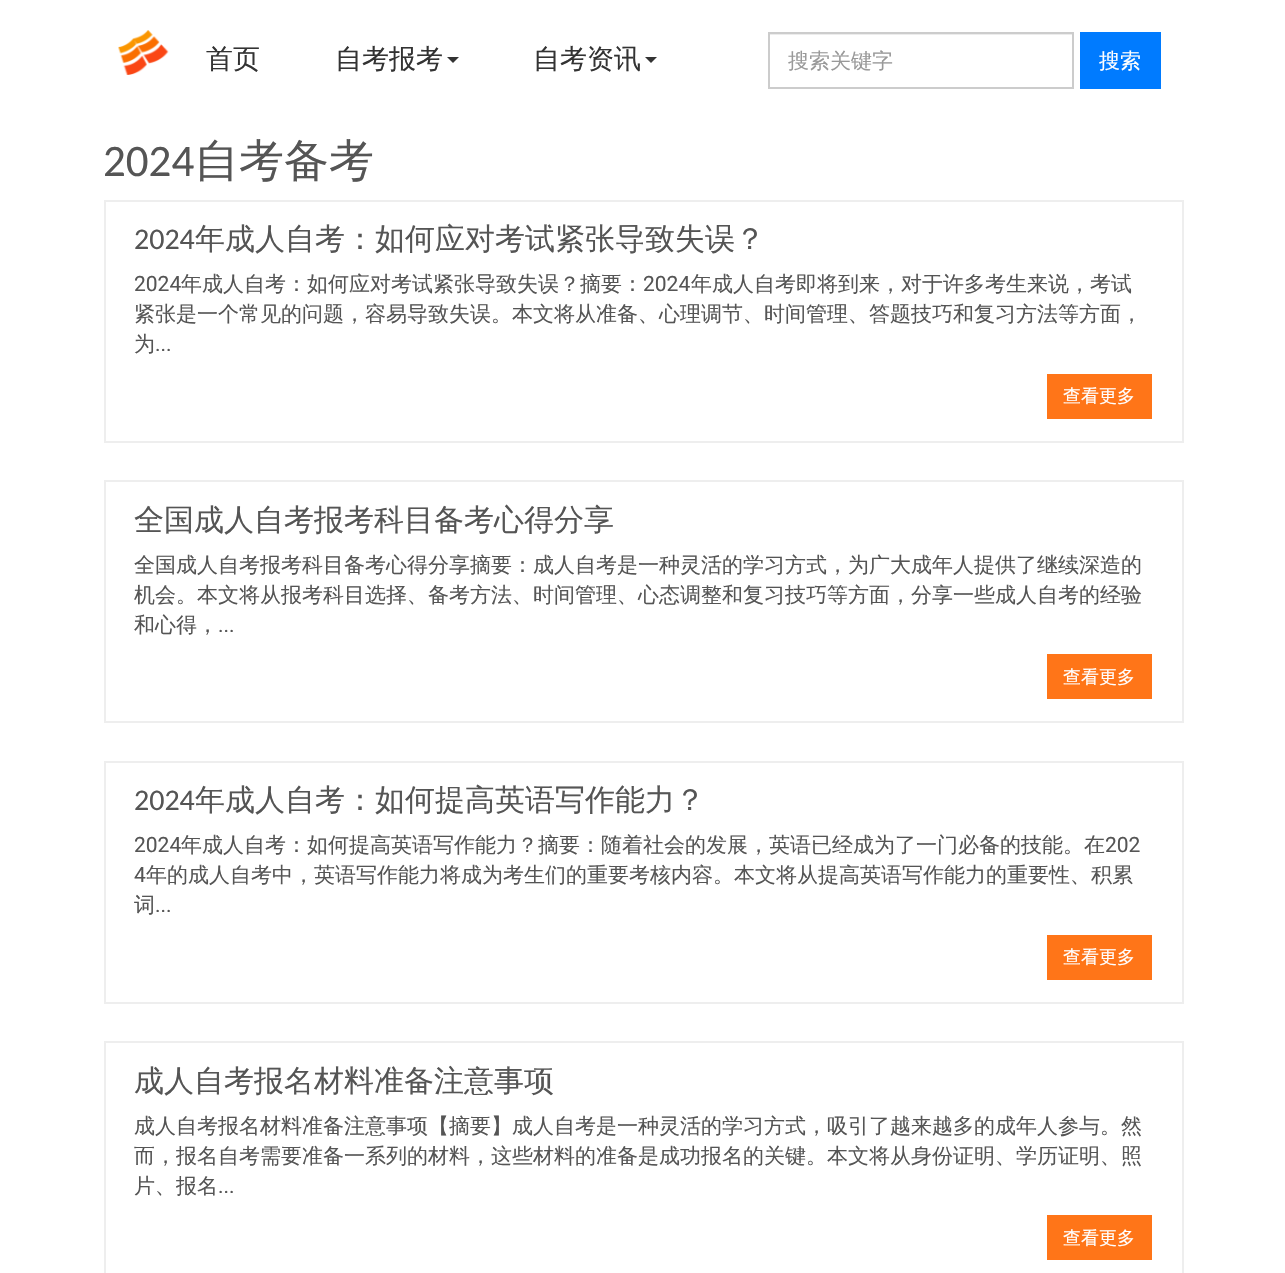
static SkFont makeFont(const char* family, int weight, float size, bool italic = false) {
  SkFontStyle style(weight, SkFontStyle::kNormal_Width,
    italic ? SkFontStyle::kItalic_Slant : SkFontStyle::kUpright_Slant);
  SkFont result(fontMgr->matchFamilyStyle(family, style), size);
  result.setSubpixel(true);
  return result;
}

static void text(SkCanvas* c, const char* s, float x, float y, const SkFont& font, SkColor color) {
  SkPaint ink(SkColor4f::FromColor(color));
  ink.setAntiAlias(true);
  c->drawString(s, x, y, font, ink);
}

static void box(SkCanvas* c, float l, float t, float r, float b, SkColor color) {
  SkPaint ink(SkColor4f::FromColor(color));
  ink.setAntiAlias(true);
  c->drawRect(SkRect::MakeLTRB(l, t, r, b), ink);
}

static void picture(SkCanvas* c, const char* path, float l, float t, float r, float b) {
  auto image = SkImages::DeferredFromEncodedData(SkData::MakeFromFileName(path));
  c->drawImageRect(image, SkRect::MakeLTRB(l, t, r, b), SkSamplingOptions());
}

void draw(SkCanvas* c) {
  SkPaint paint;
  paint.setAntiAlias(true);
  c->clear(0xffffffff);
  picture(c, "img_01.png", 118, 30, 169, 75);
  SkFont face1 = makeFont("WenQuanYi Zen Hei", 500, 27);
  text(c, "首页", 206, 68, face1, 0xff333333);
  text(c, "自考报考", 335, 68, face1, 0xff333333);
  paint.setColor(0xff333333);
  c->drawPath(SkPathBuilder().moveTo(447, 57).lineTo(459, 57).lineTo(453, 63).close().detach(), paint);
  text(c, "自考资讯", 533, 68, face1, 0xff333333);
  c->drawPath(SkPathBuilder().moveTo(645, 57).lineTo(657, 57).lineTo(651, 63).close().detach(), paint);
  box(c, 770, 34, 1073, 35, 0xffececec);
  paint.setStyle(SkPaint::kStroke_Style);
  paint.setStrokeWidth(2);
  paint.setColor(0xffcccccc);
  c->drawRect(SkRect::MakeLTRB(769, 33, 1073, 88), paint);
  SkFont face2 = makeFont("WenQuanYi Zen Hei", 500, 21);
  text(c, "搜索关键字", 788, 68, face2, 0xff999999);
  box(c, 1080, 32, 1161, 89, 0xff007bff);
  text(c, "搜索", 1099, 68, face2, 0xffffffff);
  SkFont face3 = makeFont("Carlito", 400, 45);
  text(c, "2024", 103, 176, face3, 0xff555555);
  SkFont face4 = makeFont("WenQuanYi Zen Hei", 500, 45);
  text(c, "自考备考", 194, 176, face4, 0xff555555);
  paint.setColor(0xffeeeeee);
  c->drawRect(SkRect::MakeLTRB(105, 201, 1183, 442), paint);
  SkFont face5 = makeFont("Carlito", 400, 30);
  text(c, "2024", 134, 249, face5, 0xff555555);
  SkFont face6 = makeFont("WenQuanYi Zen Hei", 500, 30);
  text(c, "年成人自考：如何应对考试紧张导致失误？", 195, 249, face6, 0xff555555);
  SkFont face7 = makeFont("Roboto", 400, 21);
  text(c, "2024", 134, 291, face7, 0xff555555);
  text(c, "年成人自考：如何应对考试紧张导致失误？摘要：", 181, 291, face2, 0xff555555);
  text(c, "2024", 643, 291, face7, 0xff555555);
  text(c, "年成人自考即将到来，对于许多考生来说，考试", 691, 291, face2, 0xff555555);
  text(c, "紧张是一个常见的问题，容易导致失误。本文将从准备、心理调节、时间管理、答题技巧和复习方法等方面，", 134, 321, face2, 0xff555555);
  text(c, "为", 134, 351, face2, 0xff555555);
  text(c, "...", 155, 351, face7, 0xff555555);
  box(c, 1047, 374, 1152, 419, 0xffff7518);
  SkFont face8 = makeFont("WenQuanYi Zen Hei", 500, 18);
  text(c, "查看更多", 1063, 402, face8, 0xffffffff);
  c->drawRect(SkRect::MakeLTRB(105, 481, 1183, 722), paint);
  text(c, "全国成人自考报考科目备考心得分享", 134, 530, face6, 0xff555555);
  text(c, "全国成人自考报考科目备考心得分享摘要：成人自考是一种灵活的学习方式，为广大成年人提供了继续深造的", 134, 572, face2, 0xff555555);
  text(c, "机会。本文将从报考科目选择、备考方法、时间管理、心态调整和复习技巧等方面，分享一些成人自考的经验", 134, 602, face2, 0xff555555);
  text(c, "和心得，", 134, 632, face2, 0xff555555);
  text(c, "...", 218, 632, face7, 0xff555555);
  box(c, 1047, 654, 1152, 699, 0xffff7518);
  text(c, "查看更多", 1063, 683, face8, 0xffffffff);
  c->drawRect(SkRect::MakeLTRB(105, 762, 1183, 1003), paint);
  text(c, "2024", 134, 810, face5, 0xff555555);
  text(c, "年成人自考：如何提高英语写作能力？", 195, 810, face6, 0xff555555);
  text(c, "2024", 134, 852, face7, 0xff555555);
  text(c, "年成人自考：如何提高英语写作能力？摘要：随着社会的发展，英语已经成为了一门必备的技能。在", 181, 852, face2, 0xff555555);
  text(c, "202", 1105, 852, face7, 0xff555555);
  text(c, "4", 134, 882, face7, 0xff555555);
  text(c, "年的成人自考中，英语写作能力将成为考生们的重要考核内容。本文将从提高英语写作能力的重要性、积累", 146, 882, face2, 0xff555555);
  text(c, "词", 134, 912, face2, 0xff555555);
  text(c, "...", 155, 912, face7, 0xff555555);
  box(c, 1047, 935, 1152, 980, 0xffff7518);
  text(c, "查看更多", 1063, 963, face8, 0xffffffff);
  c->drawRect(SkRect::MakeLTRB(105, 1042, 1183, 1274), paint);
  text(c, "成人自考报名材料准备注意事项", 134, 1091, face6, 0xff555555);
  text(c, "成人自考报名材料准备注意事项【摘要】成人自考是一种灵活的学习方式，吸引了越来越多的成年人参与。然", 134, 1133, face2, 0xff555555);
  text(c, "而，报名自考需要准备一系列的材料，这些材料的准备是成功报名的关键。本文将从身份证明、学历证明、照", 134, 1163, face2, 0xff555555);
  text(c, "片、报名", 134, 1193, face2, 0xff555555);
  text(c, "...", 218, 1193, face7, 0xff555555);
  box(c, 1047, 1215, 1152, 1260, 0xffff7518);
  text(c, "查看更多", 1063, 1244, face8, 0xffffffff);
}
